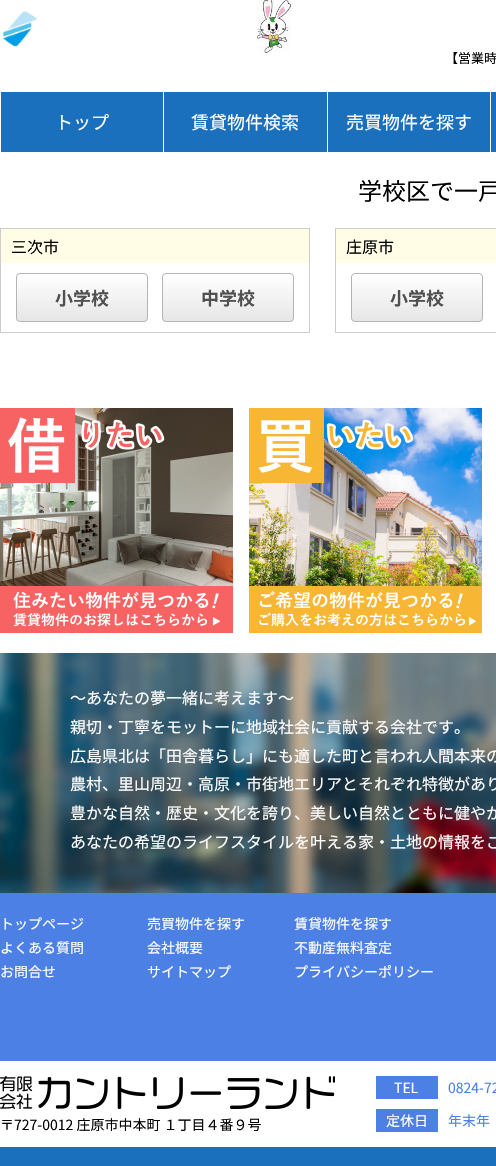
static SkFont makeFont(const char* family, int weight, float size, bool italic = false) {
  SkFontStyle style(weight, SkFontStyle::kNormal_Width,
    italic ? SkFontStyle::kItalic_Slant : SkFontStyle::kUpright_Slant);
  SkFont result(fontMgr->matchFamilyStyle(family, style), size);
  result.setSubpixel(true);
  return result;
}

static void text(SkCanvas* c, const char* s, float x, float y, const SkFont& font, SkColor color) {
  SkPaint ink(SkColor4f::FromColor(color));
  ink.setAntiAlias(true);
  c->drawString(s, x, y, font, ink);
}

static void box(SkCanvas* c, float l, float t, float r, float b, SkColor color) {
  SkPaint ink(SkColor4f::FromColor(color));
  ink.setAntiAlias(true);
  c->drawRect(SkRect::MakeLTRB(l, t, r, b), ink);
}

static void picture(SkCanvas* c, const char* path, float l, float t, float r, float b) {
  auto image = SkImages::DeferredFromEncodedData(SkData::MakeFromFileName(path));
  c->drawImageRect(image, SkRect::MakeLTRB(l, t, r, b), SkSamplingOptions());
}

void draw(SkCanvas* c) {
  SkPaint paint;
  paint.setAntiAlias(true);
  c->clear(0xffffffff);
  picture(c, "img_01.png", 0, 11, 38, 48);
  picture(c, "img_02.png", 257, 0, 291, 53);
  SkFont face1 = makeFont("Noto Sans JP", 400, 13);
  text(c, "【営業時", 445, 63, face1, 0xff000000);
  box(c, 1, 92, 496, 152, 0xff1b70be);
  SkFont face2 = makeFont("Noto Sans JP", 400, 18);
  text(c, "トップ", 55, 129, face2, 0xffffffff);
  box(c, 163, 92, 164, 152, 0xffffffff);
  text(c, "賃貸物件検索", 191, 129, face2, 0xffffffff);
  box(c, 327, 92, 328, 152, 0xffffffff);
  text(c, "売買物件を探す", 346, 129, face2, 0xffffffff);
  box(c, 490, 92, 491, 152, 0xffffffff);
  SkFont face3 = makeFont("Noto Sans JP", 400, 24);
  text(c, "学校区で一戸", 358, 200, face3, 0xff000000);
  paint.setStyle(SkPaint::kStroke_Style);
  paint.setStrokeWidth(1);
  paint.setColor(0xffcccccc);
  c->drawRect(SkRect::MakeLTRB(0.5f, 228.5f, 309.5f, 332.5f), paint);
  box(c, 1, 229, 309, 263, 0xfffffde5);
  SkFont face4 = makeFont("Noto Sans JP", 400, 16);
  text(c, "三次市", 11, 253, face4, 0xff000000);
  c->save();
  c->clipPath(SkPathBuilder().moveTo(20, 273).lineTo(144, 273).cubicTo(146, 273, 148, 275, 148, 277).lineTo(148, 318).cubicTo(148, 320, 146, 322, 144, 322).lineTo(20, 322).cubicTo(18, 322, 16, 320, 16, 318).lineTo(16, 277).cubicTo(16, 275, 18, 273, 20, 273).close().detach(), true);
  paint.setStyle(SkPaint::kFill_Style);
  {
    const SkColor colors[] = {0xffffffff, 0xffe6e6e6};
    const float stops[] = {0, 1};
    const SkPoint ends[] = {{82, 274}, {82, 321}};
    paint.setShader(SkGradientShader::MakeLinear(ends, colors, stops, 2, SkTileMode::kClamp));
    paint.setAlpha(255);
  }
  c->drawRect(SkRect::MakeLTRB(16, 274, 148, 321), paint);
  c->restore();
  paint.setStyle(SkPaint::kStroke_Style);
  paint.setShader(nullptr);
  paint.setColor(0xffb4b4b4);
  c->drawRoundRect(SkRect::MakeLTRB(16.5f, 273.5f, 147.5f, 321.5f), 3.5f, 3.5f, paint);
  SkFont face5 = makeFont("Noto Sans JP", 700, 18);
  text(c, "小学校", 55, 305, face5, 0xff505050);
  c->save();
  c->clipPath(SkPathBuilder().moveTo(166, 273).lineTo(290, 273).cubicTo(292, 273, 294, 275, 294, 277).lineTo(294, 318).cubicTo(294, 320, 292, 322, 290, 322).lineTo(166, 322).cubicTo(164, 322, 162, 320, 162, 318).lineTo(162, 277).cubicTo(162, 275, 164, 273, 166, 273).close().detach(), true);
  paint.setStyle(SkPaint::kFill_Style);
  {
    const SkColor colors[] = {0xffffffff, 0xffe6e6e6};
    const float stops[] = {0, 1};
    const SkPoint ends[] = {{228, 274}, {228, 321}};
    paint.setShader(SkGradientShader::MakeLinear(ends, colors, stops, 2, SkTileMode::kClamp));
    paint.setAlpha(255);
  }
  c->drawRect(SkRect::MakeLTRB(162, 274, 294, 321), paint);
  c->restore();
  paint.setStyle(SkPaint::kStroke_Style);
  paint.setShader(nullptr);
  paint.setColor(0xffb4b4b4);
  c->drawRoundRect(SkRect::MakeLTRB(162.5f, 273.5f, 293.5f, 321.5f), 3.5f, 3.5f, paint);
  text(c, "中学校", 201, 305, face5, 0xff505050);
  paint.setColor(0xffcccccc);
  c->drawRect(SkRect::MakeLTRB(335.5f, 228.5f, 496.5f, 332.5f), paint);
  box(c, 336, 229, 496, 263, 0xfffffde5);
  text(c, "庄原市", 346, 253, face4, 0xff000000);
  c->save();
  c->clipPath(SkPathBuilder().moveTo(355, 273).lineTo(479, 273).cubicTo(481, 273, 483, 275, 483, 277).lineTo(483, 318).cubicTo(483, 320, 481, 322, 479, 322).lineTo(355, 322).cubicTo(353, 322, 351, 320, 351, 318).lineTo(351, 277).cubicTo(351, 275, 353, 273, 355, 273).close().detach(), true);
  paint.setStyle(SkPaint::kFill_Style);
  {
    const SkColor colors[] = {0xffffffff, 0xffe6e6e6};
    const float stops[] = {0, 1};
    const SkPoint ends[] = {{417, 274}, {417, 321}};
    paint.setShader(SkGradientShader::MakeLinear(ends, colors, stops, 2, SkTileMode::kClamp));
    paint.setAlpha(255);
  }
  c->drawRect(SkRect::MakeLTRB(351, 274, 483, 321), paint);
  c->restore();
  paint.setStyle(SkPaint::kStroke_Style);
  paint.setShader(nullptr);
  paint.setColor(0xffb4b4b4);
  c->drawRoundRect(SkRect::MakeLTRB(351.5f, 273.5f, 482.5f, 321.5f), 3.5f, 3.5f, paint);
  text(c, "小学校", 390, 305, face5, 0xff505050);
  picture(c, "img_03.png", 0, 408, 233, 633);
  picture(c, "img_04.png", 249, 408, 482, 633);
  box(c, 0, 893, 496, 1061, 0xff4d80e4);
  picture(c, "img_05.png", 0, 653, 496, 893);
  text(c, "〜あなたの夢一緒に考えます〜", 70, 704, face4, 0xffffffff);
  text(c, "親切・丁寧をモットーに地域社会に貢献する会社です。", 70, 733, face4, 0xffffffff);
  text(c, "広島県北は「田舎暮らし」にも適した町と言われ人間本来の", 70, 762, face4, 0xffffffff);
  text(c, "農村、里山周辺・高原・市街地エリアとそれぞれ特徴があり", 70, 790, face4, 0xffffffff);
  text(c, "豊かな自然・歴史・文化を誇り、美しい自然とともに健やか", 70, 819, face4, 0xffffffff);
  text(c, "あなたの希望のライフスタイルを叶える家・土地の情報をご", 70, 848, face4, 0xffffffff);
  SkFont face6 = makeFont("Noto Sans JP", 400, 14);
  text(c, "トップページ", 0, 929, face6, 0xffffffff);
  text(c, "よくある質問", 0, 953, face6, 0xffffffff);
  text(c, "お問合せ", 0, 977, face6, 0xffffffff);
  text(c, "売買物件を探す", 147, 929, face6, 0xffffffff);
  text(c, "会社概要", 147, 953, face6, 0xffffffff);
  text(c, "サイトマップ", 147, 977, face6, 0xffffffff);
  text(c, "賃貸物件を探す", 294, 929, face6, 0xffffffff);
  text(c, "不動産無料査定", 294, 953, face6, 0xffffffff);
  text(c, "プライバシーポリシー", 294, 977, face6, 0xffffffff);
  picture(c, "img_06.png", 0, 1076, 335, 1109);
  text(c, "〒727-0012 庄原市中本町 １丁目４番９号", 0, 1130, face6, 0xff000000);
  box(c, 376, 1076, 438, 1099, 0xff4d80e4);
  text(c, "TEL", 394, 1093, face6, 0xffffffff);
  text(c, "0824-72", 448, 1093, face6, 0xff4d80e4);
  box(c, 376, 1109, 438, 1132, 0xff4d80e4);
  text(c, "定休日", 386, 1126, face6, 0xffffffff);
  text(c, "年末年", 448, 1126, face6, 0xff4d80e4);
  box(c, 0, 1147, 496, 1166, 0xff1b70be);
}
